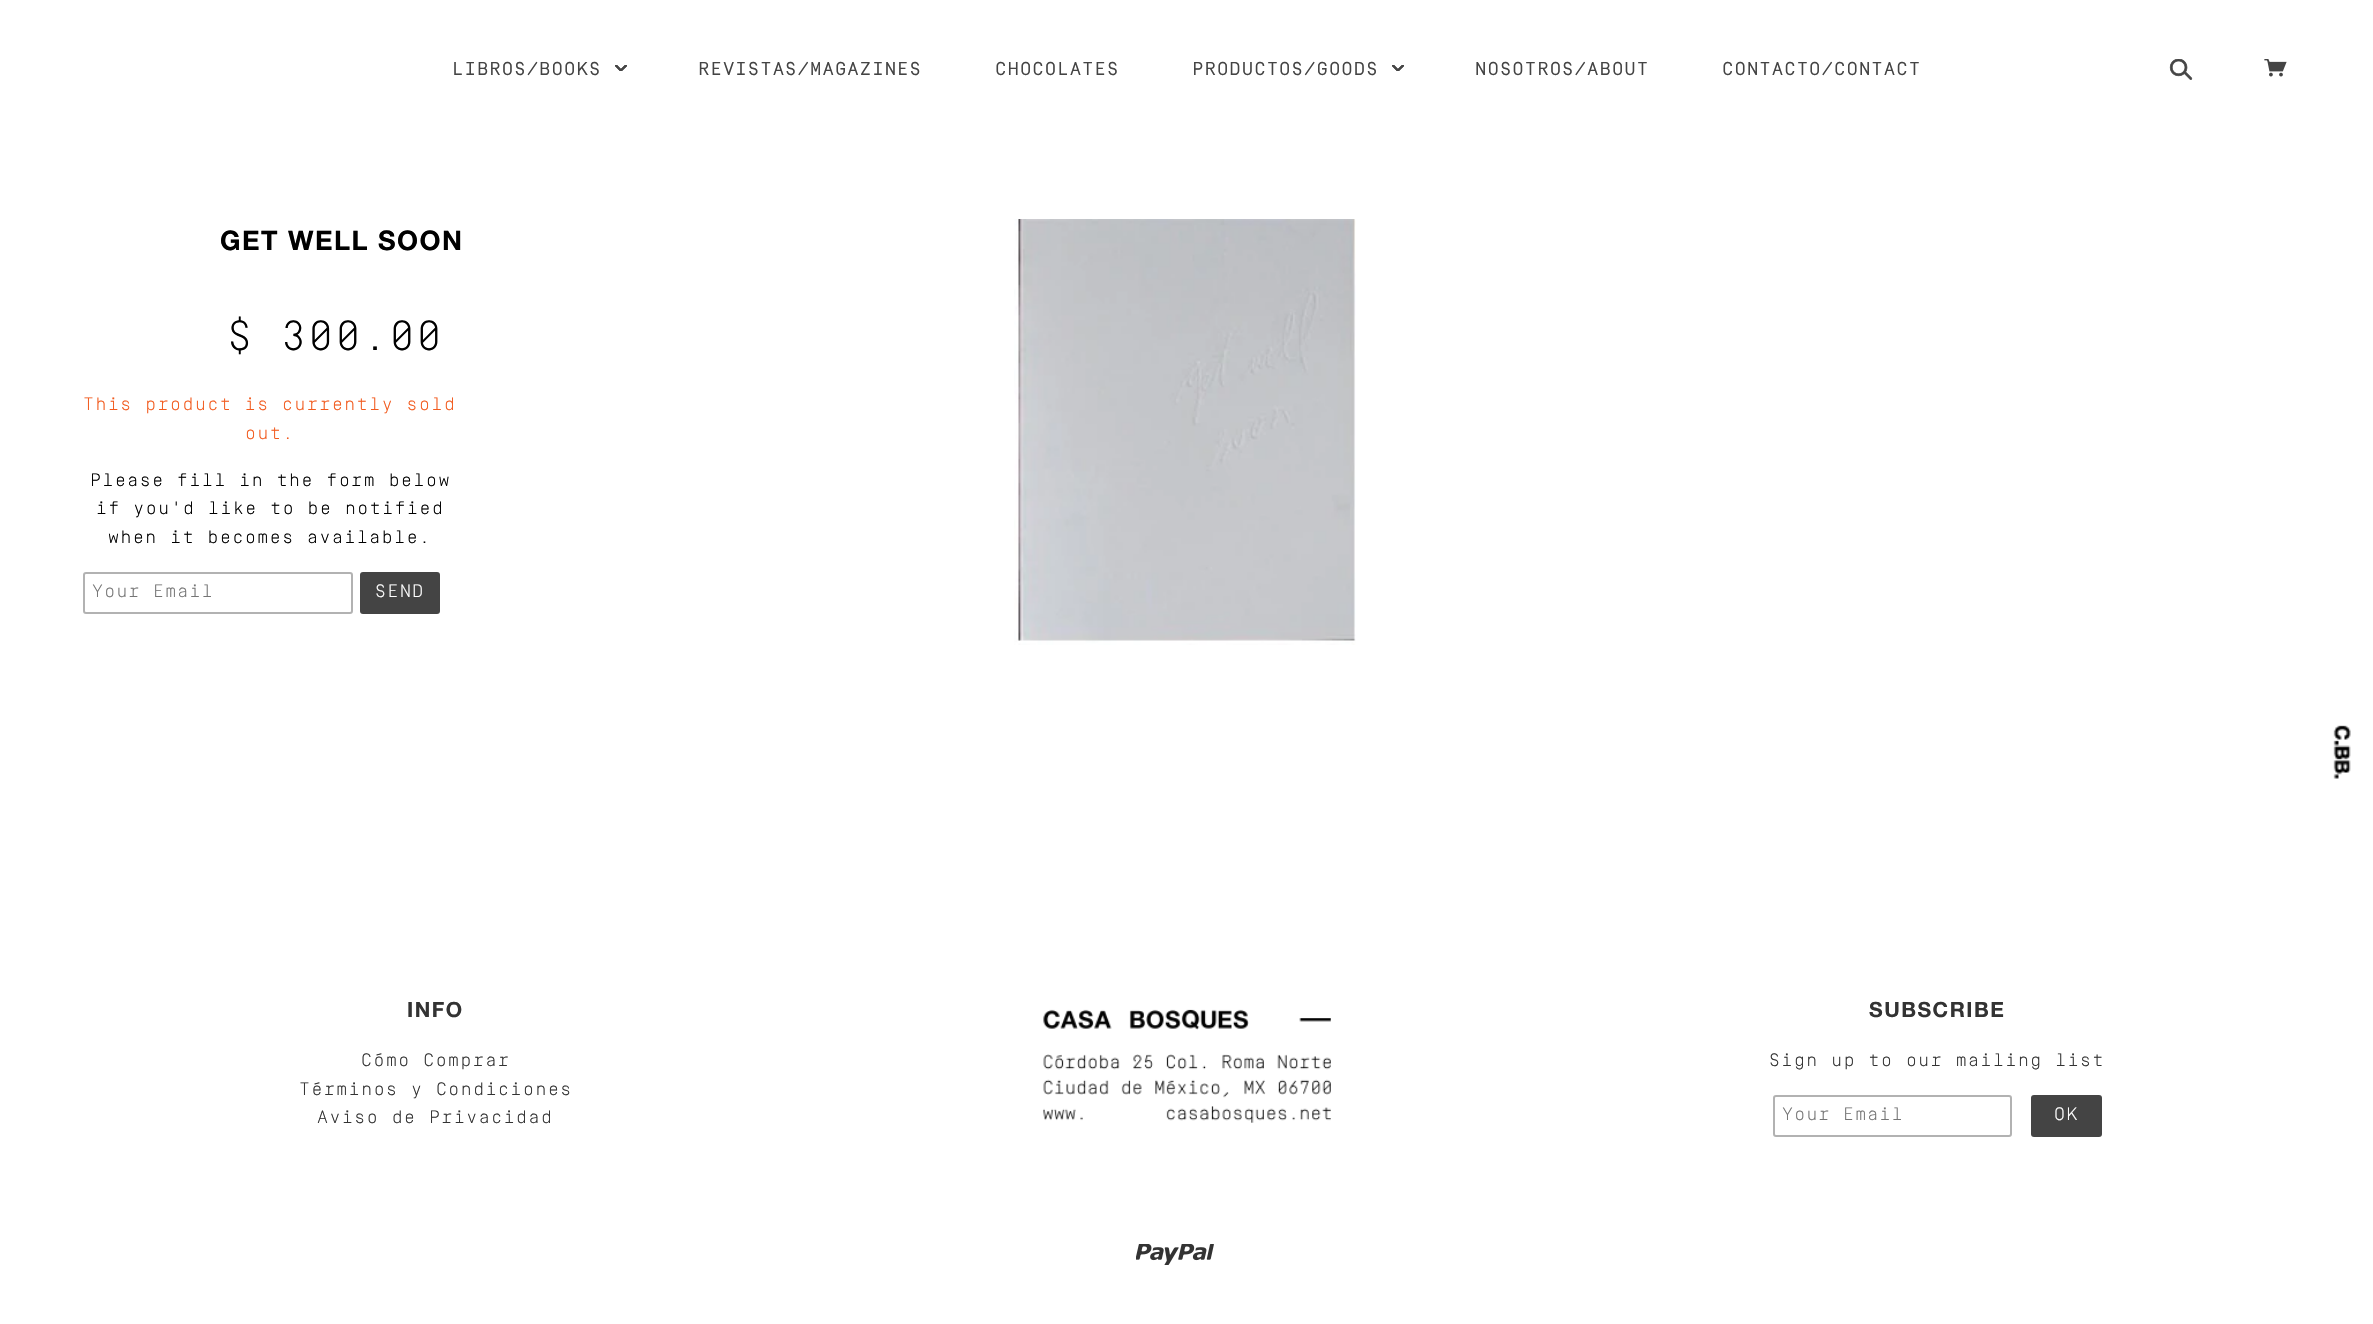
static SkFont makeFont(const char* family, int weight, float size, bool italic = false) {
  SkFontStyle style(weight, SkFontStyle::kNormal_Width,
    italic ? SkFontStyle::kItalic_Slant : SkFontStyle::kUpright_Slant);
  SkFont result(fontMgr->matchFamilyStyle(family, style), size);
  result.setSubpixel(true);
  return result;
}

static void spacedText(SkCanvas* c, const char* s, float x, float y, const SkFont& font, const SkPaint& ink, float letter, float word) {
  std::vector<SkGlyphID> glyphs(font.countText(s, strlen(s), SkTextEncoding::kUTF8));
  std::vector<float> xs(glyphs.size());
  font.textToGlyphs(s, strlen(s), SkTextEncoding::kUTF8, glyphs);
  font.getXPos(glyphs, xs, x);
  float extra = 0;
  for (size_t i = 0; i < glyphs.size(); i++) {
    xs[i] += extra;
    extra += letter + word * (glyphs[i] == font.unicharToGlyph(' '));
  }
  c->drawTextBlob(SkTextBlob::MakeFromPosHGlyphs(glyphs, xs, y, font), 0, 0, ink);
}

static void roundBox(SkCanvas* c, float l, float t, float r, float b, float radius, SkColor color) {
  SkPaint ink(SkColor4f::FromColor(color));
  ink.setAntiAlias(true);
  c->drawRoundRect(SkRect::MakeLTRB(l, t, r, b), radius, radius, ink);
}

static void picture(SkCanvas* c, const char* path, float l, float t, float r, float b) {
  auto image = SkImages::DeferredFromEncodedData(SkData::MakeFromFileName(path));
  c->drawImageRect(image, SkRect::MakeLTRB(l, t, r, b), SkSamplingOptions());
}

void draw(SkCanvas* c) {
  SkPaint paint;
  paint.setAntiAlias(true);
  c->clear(0xffffffff);
  SkFont face1 = makeFont("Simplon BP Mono", 700, 18);
  paint.setColor(0xff444444);
  spacedText(c, "LIBROS/BOOKS", 452, 75, face1, paint, 1.5f, 0);
  picture(c, "img_01.png", 615, 65, 627, 71);
  spacedText(c, "REVISTAS/MAGAZINES", 698, 75, face1, paint, 1.5f, 0);
  spacedText(c, "CHOCOLATES", 995, 75, face1, paint, 1.5f, 0);
  spacedText(c, "PRODUCTOS/GOODS", 1192, 75, face1, paint, 1.5f, 0);
  picture(c, "img_01.png", 1392, 65, 1404, 71);
  spacedText(c, "NOSOTROS/ABOUT", 1475, 75, face1, paint, 1.5f, 0);
  spacedText(c, "CONTACTO/CONTACT", 1722, 75, face1, paint, 1.5f, 0);
  picture(c, "img_02.png", 2169, 59, 2193, 80);
  picture(c, "img_03.png", 2264, 59, 2287, 77);
  picture(c, "img_04.png", 2333, 725, 2351, 779);
  SkFont face2 = makeFont("Helvetica Neue", 700, 27);
  paint.setColor(0xff000000);
  spacedText(c, "GET WELL SOON", 220, 250, face2, paint, 1.5f, 0);
  SkFont face3 = makeFont("Simplon BP Mono", 300, 42);
  spacedText(c, "$ 300.00", 227, 350, face3, paint, 1.5f, 0);
  SkFont face4 = makeFont("Simplon BP Mono", 300, 18);
  paint.setColor(0xfff25a1d);
  spacedText(c, "This product is currently sold", 83, 410, face4, paint, 1.5f, 0);
  spacedText(c, "out.", 245, 439, face4, paint, 1.5f, 0);
  paint.setColor(0xff000000);
  spacedText(c, "Please fill in the form below", 90, 486, face4, paint, 1.5f, 0);
  spacedText(c, "if you'd like to be notified", 96, 514, face4, paint, 1.5f, 0);
  spacedText(c, "when it becomes available.", 108, 543, face4, paint, 1.5f, 0);
  paint.setStyle(SkPaint::kStroke_Style);
  paint.setStrokeWidth(2);
  paint.setColor(0xffb2b2b2);
  c->drawRoundRect(SkRect::MakeLTRB(84, 573, 352, 613), 2, 2, paint);
  paint.setStyle(SkPaint::kFill_Style);
  paint.setColor(0xff757575);
  spacedText(c, "Your Email", 92, 597, face4, paint, 1.25f, 0);
  roundBox(c, 360, 572, 440, 614, 3, 0xff444444);
  paint.setColor(0xffffffff);
  spacedText(c, "SEND", 375, 597, face4, paint, 1.5f, 0);
  picture(c, "img_05.png", 1014, 219, 1356, 645);
  SkFont face5 = makeFont("Helvetica Neue", 700, 21);
  paint.setColor(0xff333333);
  spacedText(c, "INFO", 407, 1017, face5, paint, 1.5f, 0);
  spacedText(c, "Cómo Comprar", 361, 1066, face4, paint, 1.5f, 0);
  spacedText(c, "Términos y Condiciones", 299, 1095, face4, paint, 1.5f, 0);
  spacedText(c, "Aviso de Privacidad", 317, 1123, face4, paint, 1.5f, 0);
  picture(c, "img_06.png", 1043, 1009, 1331, 1123);
  spacedText(c, "SUBSCRIBE", 1869, 1017, face5, paint, 1.5f, 0);
  spacedText(c, "Sign up to our mailing list", 1769, 1066, face4, paint, 1.5f, 0);
  paint.setStyle(SkPaint::kStroke_Style);
  paint.setColor(0xffb2b2b2);
  c->drawRoundRect(SkRect::MakeLTRB(1774, 1096, 2011, 1136), 2, 2, paint);
  paint.setStyle(SkPaint::kFill_Style);
  paint.setColor(0xff757575);
  spacedText(c, "Your Email", 1782, 1120, face4, paint, 1.25f, 0);
  roundBox(c, 2031, 1095, 2102, 1137, 3, 0xff444444);
  paint.setColor(0xffffffff);
  spacedText(c, "OK", 2054, 1120, face4, paint, 1.5f, 0);
  picture(c, "img_07.png", 1136, 1244, 1214, 1265);
}
